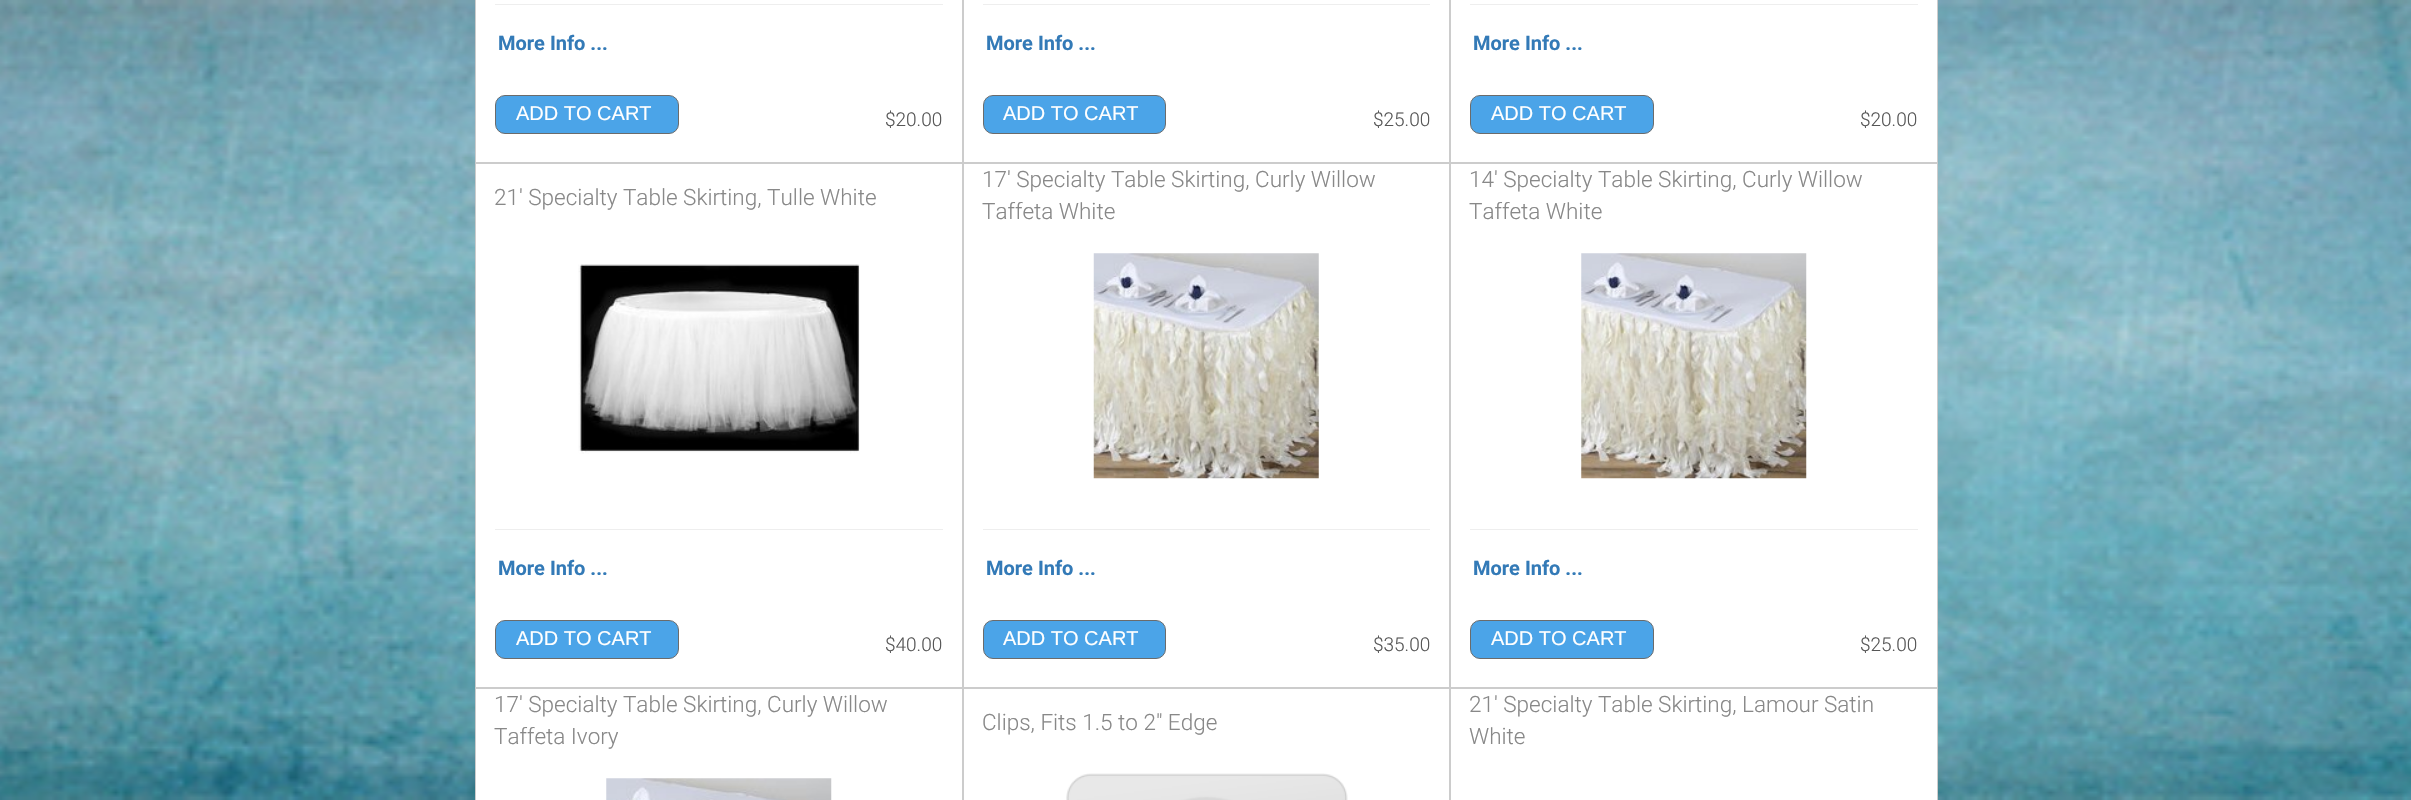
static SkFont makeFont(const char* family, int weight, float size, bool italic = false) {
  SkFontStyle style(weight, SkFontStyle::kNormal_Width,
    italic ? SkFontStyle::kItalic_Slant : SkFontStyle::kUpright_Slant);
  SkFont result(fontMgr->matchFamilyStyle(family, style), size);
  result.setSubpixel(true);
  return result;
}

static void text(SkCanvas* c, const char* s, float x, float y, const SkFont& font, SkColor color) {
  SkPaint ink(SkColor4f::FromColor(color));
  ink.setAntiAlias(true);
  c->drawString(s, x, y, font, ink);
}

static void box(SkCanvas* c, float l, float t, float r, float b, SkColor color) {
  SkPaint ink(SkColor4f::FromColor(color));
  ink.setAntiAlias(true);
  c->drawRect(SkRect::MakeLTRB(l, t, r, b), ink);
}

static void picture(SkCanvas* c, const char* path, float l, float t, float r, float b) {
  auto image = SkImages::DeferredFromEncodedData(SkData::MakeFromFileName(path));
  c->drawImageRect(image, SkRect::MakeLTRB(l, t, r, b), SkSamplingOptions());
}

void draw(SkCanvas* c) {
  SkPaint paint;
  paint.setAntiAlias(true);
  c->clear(0xffffffff);
  picture(c, "img_01.png", 0, 0, 2411, 800);
  paint.setColor(0xffffffff);
  c->drawRect(SkRect::MakeLTRB(475.5f, -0.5f, 962.5f, 162.5f), paint);
  paint.setStyle(SkPaint::kStroke_Style);
  paint.setStrokeWidth(1);
  paint.setColor(0xffcccccc);
  c->drawRect(SkRect::MakeLTRB(475.5f, -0.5f, 962.5f, 162.5f), paint);
  box(c, 495, 4, 943, 5, 0xffeeeeee);
  SkFont face1 = makeFont("Roboto", 700, 20);
  text(c, "More Info ...", 498, 50, face1, 0xff337ab7);
  paint.setStyle(SkPaint::kFill_Style);
  paint.setColor(0xff4ba4e8);
  c->drawRoundRect(SkRect::MakeLTRB(495.5f, 95.5f, 678.5f, 133.5f), 9.5f, 9.5f, paint);
  paint.setStyle(SkPaint::kStroke_Style);
  paint.setColor(0xff6b6b6b);
  c->drawRoundRect(SkRect::MakeLTRB(495.5f, 95.5f, 678.5f, 133.5f), 9.5f, 9.5f, paint);
  SkFont face2 = makeFont("Liberation Sans", 400, 20);
  text(c, "ADD TO CART", 516, 120, face2, 0xffffffff);
  SkFont face3 = makeFont("Roboto", 300, 19);
  text(c, "$20.00", 885, 126, face3, 0xff565656);
  paint.setStyle(SkPaint::kFill_Style);
  paint.setColor(0xffffffff);
  c->drawRect(SkRect::MakeLTRB(963.5f, -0.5f, 1449.5f, 162.5f), paint);
  paint.setStyle(SkPaint::kStroke_Style);
  paint.setColor(0xffcccccc);
  c->drawRect(SkRect::MakeLTRB(963.5f, -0.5f, 1449.5f, 162.5f), paint);
  box(c, 983, 4, 1430, 5, 0xffeeeeee);
  text(c, "More Info ...", 986, 50, face1, 0xff337ab7);
  paint.setStyle(SkPaint::kFill_Style);
  paint.setColor(0xff4ba4e8);
  c->drawRoundRect(SkRect::MakeLTRB(983.5f, 95.5f, 1165.5f, 133.5f), 9.5f, 9.5f, paint);
  paint.setStyle(SkPaint::kStroke_Style);
  paint.setColor(0xff6b6b6b);
  c->drawRoundRect(SkRect::MakeLTRB(983.5f, 95.5f, 1165.5f, 133.5f), 9.5f, 9.5f, paint);
  text(c, "ADD TO CART", 1003, 120, face2, 0xffffffff);
  text(c, "$25.00", 1373, 126, face3, 0xff565656);
  paint.setStyle(SkPaint::kFill_Style);
  paint.setColor(0xffffffff);
  c->drawRect(SkRect::MakeLTRB(1450.5f, -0.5f, 1937.5f, 162.5f), paint);
  paint.setStyle(SkPaint::kStroke_Style);
  paint.setColor(0xffcccccc);
  c->drawRect(SkRect::MakeLTRB(1450.5f, -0.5f, 1937.5f, 162.5f), paint);
  box(c, 1470, 4, 1918, 5, 0xffeeeeee);
  text(c, "More Info ...", 1473, 50, face1, 0xff337ab7);
  paint.setStyle(SkPaint::kFill_Style);
  paint.setColor(0xff4ba4e8);
  c->drawRoundRect(SkRect::MakeLTRB(1470.5f, 95.5f, 1653.5f, 133.5f), 9.5f, 9.5f, paint);
  paint.setStyle(SkPaint::kStroke_Style);
  paint.setColor(0xff6b6b6b);
  c->drawRoundRect(SkRect::MakeLTRB(1470.5f, 95.5f, 1653.5f, 133.5f), 9.5f, 9.5f, paint);
  text(c, "ADD TO CART", 1491, 120, face2, 0xffffffff);
  text(c, "$20.00", 1860, 126, face3, 0xff565656);
  paint.setStyle(SkPaint::kFill_Style);
  paint.setColor(0xffffffff);
  c->drawRect(SkRect::MakeLTRB(475.5f, 163.5f, 962.5f, 687.5f), paint);
  paint.setStyle(SkPaint::kStroke_Style);
  paint.setColor(0xffcccccc);
  c->drawRect(SkRect::MakeLTRB(475.5f, 163.5f, 962.5f, 687.5f), paint);
  SkFont face4 = makeFont("Roboto", 300, 22.5f);
  text(c, "21' Specialty Table Skirting, Tulle White", 494, 205, face4, 0xff888888);
  picture(c, "img_02.png", 578, 264, 860, 454);
  box(c, 495, 529, 943, 530, 0xffeeeeee);
  text(c, "More Info ...", 498, 575, face1, 0xff337ab7);
  paint.setStyle(SkPaint::kFill_Style);
  paint.setColor(0xff4ba4e8);
  c->drawRoundRect(SkRect::MakeLTRB(495.5f, 620.5f, 678.5f, 658.5f), 9.5f, 9.5f, paint);
  paint.setStyle(SkPaint::kStroke_Style);
  paint.setColor(0xff6b6b6b);
  c->drawRoundRect(SkRect::MakeLTRB(495.5f, 620.5f, 678.5f, 658.5f), 9.5f, 9.5f, paint);
  text(c, "ADD TO CART", 516, 645, face2, 0xffffffff);
  text(c, "$40.00", 885, 651, face3, 0xff565656);
  paint.setStyle(SkPaint::kFill_Style);
  paint.setColor(0xffffffff);
  c->drawRect(SkRect::MakeLTRB(963.5f, 163.5f, 1449.5f, 687.5f), paint);
  paint.setStyle(SkPaint::kStroke_Style);
  paint.setColor(0xffcccccc);
  c->drawRect(SkRect::MakeLTRB(963.5f, 163.5f, 1449.5f, 687.5f), paint);
  text(c, "17' Specialty Table Skirting, Curly Willow", 982, 187, face4, 0xff888888);
  text(c, "Taffeta White", 982, 219, face4, 0xff888888);
  picture(c, "img_03.png", 1093, 253, 1319, 479);
  box(c, 983, 529, 1430, 530, 0xffeeeeee);
  text(c, "More Info ...", 986, 575, face1, 0xff337ab7);
  paint.setStyle(SkPaint::kFill_Style);
  paint.setColor(0xff4ba4e8);
  c->drawRoundRect(SkRect::MakeLTRB(983.5f, 620.5f, 1165.5f, 658.5f), 9.5f, 9.5f, paint);
  paint.setStyle(SkPaint::kStroke_Style);
  paint.setColor(0xff6b6b6b);
  c->drawRoundRect(SkRect::MakeLTRB(983.5f, 620.5f, 1165.5f, 658.5f), 9.5f, 9.5f, paint);
  text(c, "ADD TO CART", 1003, 645, face2, 0xffffffff);
  text(c, "$35.00", 1373, 651, face3, 0xff565656);
  paint.setStyle(SkPaint::kFill_Style);
  paint.setColor(0xffffffff);
  c->drawRect(SkRect::MakeLTRB(1450.5f, 163.5f, 1937.5f, 687.5f), paint);
  paint.setStyle(SkPaint::kStroke_Style);
  paint.setColor(0xffcccccc);
  c->drawRect(SkRect::MakeLTRB(1450.5f, 163.5f, 1937.5f, 687.5f), paint);
  text(c, "14' Specialty Table Skirting, Curly Willow", 1469, 187, face4, 0xff888888);
  text(c, "Taffeta White", 1469, 219, face4, 0xff888888);
  picture(c, "img_04.png", 1581, 253, 1807, 479);
  box(c, 1470, 529, 1918, 530, 0xffeeeeee);
  text(c, "More Info ...", 1473, 575, face1, 0xff337ab7);
  paint.setStyle(SkPaint::kFill_Style);
  paint.setColor(0xff4ba4e8);
  c->drawRoundRect(SkRect::MakeLTRB(1470.5f, 620.5f, 1653.5f, 658.5f), 9.5f, 9.5f, paint);
  paint.setStyle(SkPaint::kStroke_Style);
  paint.setColor(0xff6b6b6b);
  c->drawRoundRect(SkRect::MakeLTRB(1470.5f, 620.5f, 1653.5f, 658.5f), 9.5f, 9.5f, paint);
  text(c, "ADD TO CART", 1491, 645, face2, 0xffffffff);
  text(c, "$25.00", 1860, 651, face3, 0xff565656);
  paint.setStyle(SkPaint::kFill_Style);
  paint.setColor(0xffffffff);
  c->drawRect(SkRect::MakeLTRB(475.5f, 688.5f, 962.5f, 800.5f), paint);
  paint.setStyle(SkPaint::kStroke_Style);
  paint.setColor(0xffcccccc);
  c->drawRect(SkRect::MakeLTRB(475.5f, 688.5f, 962.5f, 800.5f), paint);
  text(c, "17' Specialty Table Skirting, Curly Willow", 494, 712, face4, 0xff888888);
  text(c, "Taffeta Ivory", 494, 744, face4, 0xff888888);
  picture(c, "img_05.png", 606, 778, 832, 800);
  paint.setStyle(SkPaint::kFill_Style);
  paint.setColor(0xffffffff);
  c->drawRect(SkRect::MakeLTRB(963.5f, 688.5f, 1449.5f, 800.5f), paint);
  paint.setStyle(SkPaint::kStroke_Style);
  paint.setColor(0xffcccccc);
  c->drawRect(SkRect::MakeLTRB(963.5f, 688.5f, 1449.5f, 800.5f), paint);
  text(c, "Clips, Fits 1.5 to 2\" Edge", 982, 730, face4, 0xff888888);
  picture(c, "img_06.png", 1066, 773, 1348, 800);
  paint.setStyle(SkPaint::kFill_Style);
  paint.setColor(0xffffffff);
  c->drawRect(SkRect::MakeLTRB(1450.5f, 688.5f, 1937.5f, 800.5f), paint);
  paint.setStyle(SkPaint::kStroke_Style);
  paint.setColor(0xffcccccc);
  c->drawRect(SkRect::MakeLTRB(1450.5f, 688.5f, 1937.5f, 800.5f), paint);
  text(c, "21' Specialty Table Skirting, Lamour Satin", 1469, 712, face4, 0xff888888);
  text(c, "White", 1469, 744, face4, 0xff888888);
}
